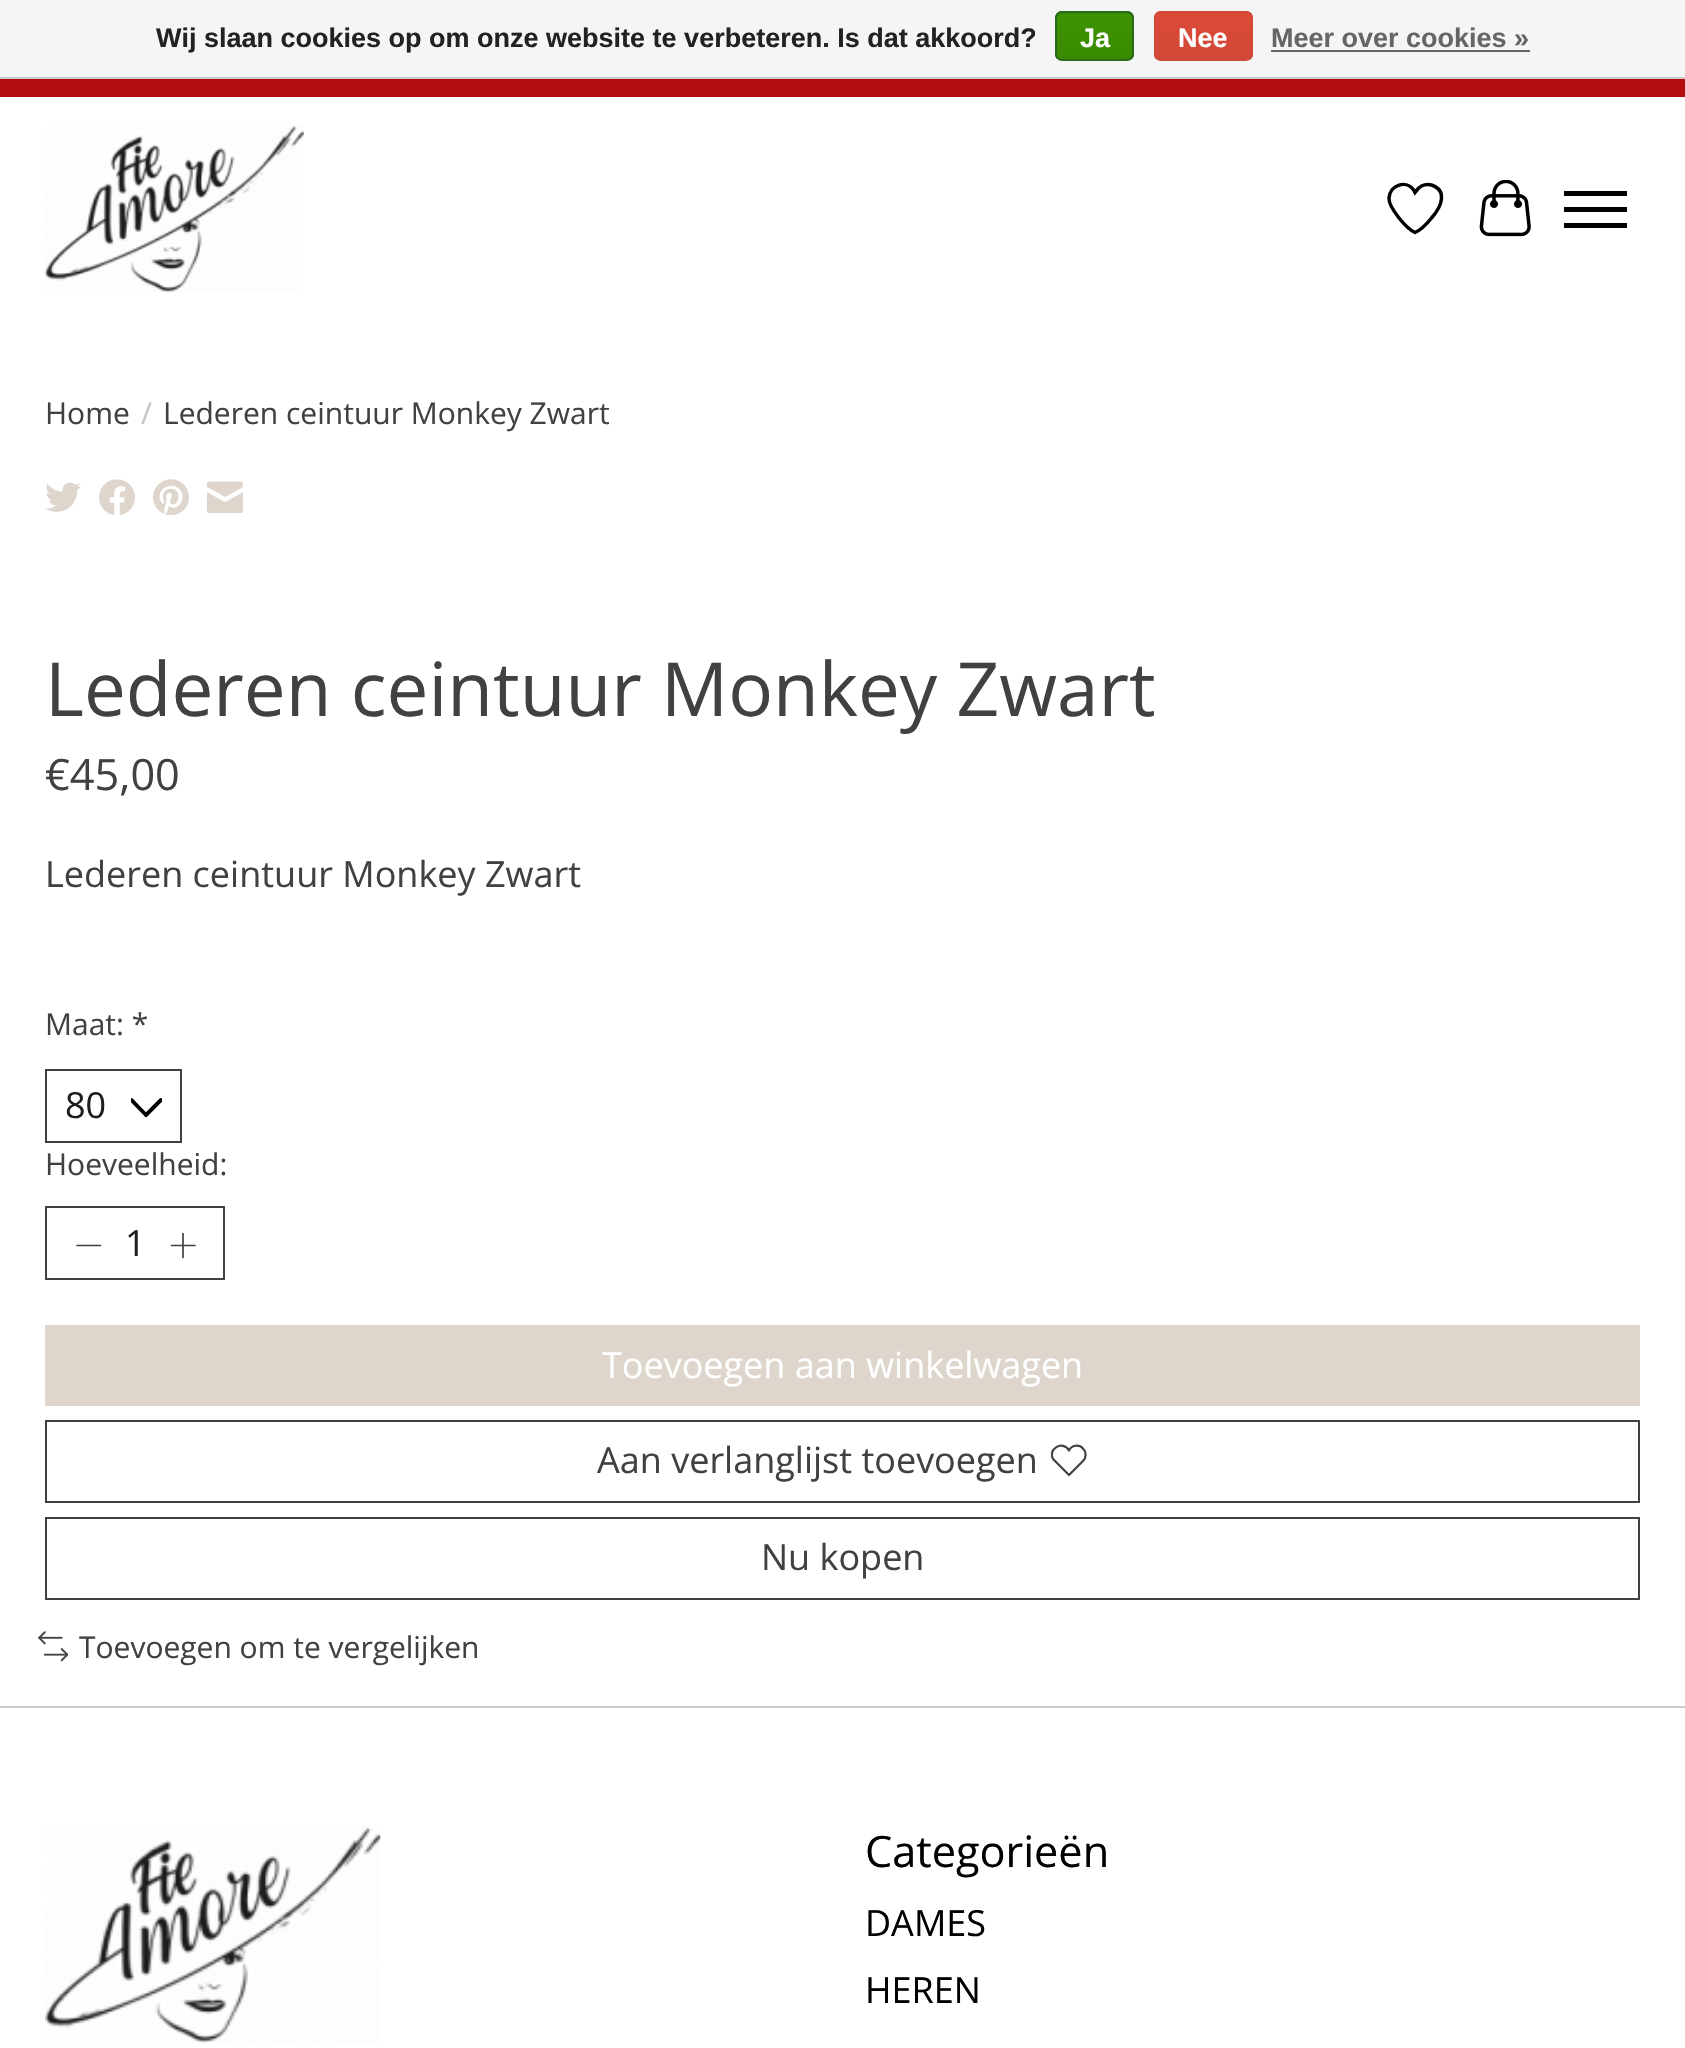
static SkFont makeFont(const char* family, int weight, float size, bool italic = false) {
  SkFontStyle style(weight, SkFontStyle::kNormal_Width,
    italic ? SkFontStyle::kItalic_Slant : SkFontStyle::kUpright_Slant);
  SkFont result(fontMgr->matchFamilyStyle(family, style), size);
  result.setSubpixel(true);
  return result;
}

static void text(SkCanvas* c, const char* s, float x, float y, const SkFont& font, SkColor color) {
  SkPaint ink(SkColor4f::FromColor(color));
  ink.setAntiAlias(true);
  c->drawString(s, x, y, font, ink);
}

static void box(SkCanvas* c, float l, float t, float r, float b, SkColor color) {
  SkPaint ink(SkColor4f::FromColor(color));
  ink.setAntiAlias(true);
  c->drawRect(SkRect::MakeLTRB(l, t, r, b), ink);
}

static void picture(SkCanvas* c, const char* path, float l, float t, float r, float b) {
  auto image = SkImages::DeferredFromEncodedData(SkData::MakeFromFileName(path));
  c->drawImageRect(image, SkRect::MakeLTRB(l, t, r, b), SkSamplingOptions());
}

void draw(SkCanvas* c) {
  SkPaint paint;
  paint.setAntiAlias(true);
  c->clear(0xffffffff);
  box(c, 0, 0, 1685, 77, 0xfff5f5f5);
  box(c, 0, 77, 1685, 79, 0xffcccccc);
  SkFont face1 = makeFont("Liberation Sans", 700, 27);
  text(c, "Wij slaan cookies op om onze website te verbeteren. Is dat akkoord?", 156, 47, face1, 0xff222222);
  c->save();
  c->clipPath(SkPathBuilder().moveTo(1062, 11).lineTo(1127, 11).cubicTo(1131, 11, 1134, 14, 1134, 18).lineTo(1134, 54).cubicTo(1134, 58, 1131, 61, 1127, 61).lineTo(1062, 61).cubicTo(1058, 61, 1055, 58, 1055, 54).lineTo(1055, 18).cubicTo(1055, 14, 1058, 11, 1062, 11).close().detach(), true);
  {
    const SkColor colors[] = {0xff3c9300, 0xff398a00};
    const float stops[] = {0, 1};
    const SkPoint ends[] = {{1095, -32}, {1095, 14}};
    paint.setShader(SkGradientShader::MakeLinear(ends, colors, stops, 2, SkTileMode::kClamp));
    paint.setAlpha(255);
  }
  c->drawRect(SkRect::MakeLTRB(1055, 11, 1134, 14), paint);
  {
    const SkColor colors[] = {0xff3c9300, 0xff398a00};
    const float stops[] = {0, 1};
    const SkPoint ends[] = {{1095, 13}, {1095, 59}};
    paint.setShader(SkGradientShader::MakeLinear(ends, colors, stops, 2, SkTileMode::kClamp));
    paint.setAlpha(255);
  }
  c->drawRect(SkRect::MakeLTRB(1055, 14, 1134, 59), paint);
  c->restore();
  paint.setStyle(SkPaint::kStroke_Style);
  paint.setStrokeWidth(2);
  paint.setShader(nullptr);
  paint.setColor(0xff29691d);
  c->drawRoundRect(SkRect::MakeLTRB(1056, 12, 1133, 60), 6, 6, paint);
  text(c, "Ja", 1080, 47, face1, 0xffffffff);
  c->save();
  c->clipPath(SkPathBuilder().moveTo(1161, 11).lineTo(1246, 11).cubicTo(1250, 11, 1253, 14, 1253, 18).lineTo(1253, 54).cubicTo(1253, 58, 1250, 61, 1246, 61).lineTo(1161, 61).cubicTo(1157, 61, 1154, 58, 1154, 54).lineTo(1154, 18).cubicTo(1154, 14, 1157, 11, 1161, 11).close().detach(), true);
  paint.setStyle(SkPaint::kFill_Style);
  {
    const SkColor colors[] = {0xffdc4a38, 0xffd14836};
    const float stops[] = {0, 1};
    const SkPoint ends[] = {{1204, -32}, {1204, 14}};
    paint.setShader(SkGradientShader::MakeLinear(ends, colors, stops, 2, SkTileMode::kClamp));
    paint.setAlpha(255);
  }
  c->drawRect(SkRect::MakeLTRB(1154, 11, 1253, 14), paint);
  {
    const SkColor colors[] = {0xffdc4a38, 0xffd14836};
    const float stops[] = {0, 1};
    const SkPoint ends[] = {{1204, 13}, {1204, 59}};
    paint.setShader(SkGradientShader::MakeLinear(ends, colors, stops, 2, SkTileMode::kClamp));
    paint.setAlpha(255);
  }
  c->drawRect(SkRect::MakeLTRB(1154, 14, 1253, 59), paint);
  c->restore();
  paint.setStyle(SkPaint::kStroke_Style);
  paint.setShader(nullptr);
  paint.setColor(0xffd14836);
  c->drawRoundRect(SkRect::MakeLTRB(1155, 12, 1252, 60), 6, 6, paint);
  text(c, "Nee", 1178, 47, face1, 0xffffffff);
  text(c, "Meer over cookies »", 1271, 47, face1, 0xff666666);
  box(c, 1271, 50, 1530, 52, 0xff666666);
  box(c, 0, 79, 1685, 97, 0xffb20d10);
  picture(c, "img_01.png", 45, 125, 304, 293);
  paint.setStrokeWidth(3.5f);
  paint.setColor(0xff000000);
  c->drawPath(SkPathBuilder().moveTo(1414, 190.5f).lineTo(1415, 192.5f).cubicTo(1417, 190, 1418.5f, 187.5f, 1421.5f, 186).cubicTo(1430.5f, 181.5f, 1442.5f, 188, 1441.5f, 198.5f).cubicTo(1441, 206, 1436, 213, 1431.5f, 218).cubicTo(1427.5f, 223, 1421, 230, 1415, 232.5f).cubicTo(1409.5f, 230, 1403, 223, 1399, 218).cubicTo(1395.5f, 213.5f, 1388.5f, 204.5f, 1389, 198).cubicTo(1390, 184.5f, 1406.5f, 179.5f, 1414, 190.5f).close().detach(), paint);
  picture(c, "img_02.png", 1479, 180, 1531, 237);
  box(c, 1564, 207, 1627, 212, 0xff000000);
  box(c, 1564, 191, 1627, 196, 0xff000000);
  box(c, 1564, 223, 1627, 228, 0xff000000);
  SkFont face2 = makeFont("Open Sans", 400, 30);
  text(c, "Home", 45, 424, face2, 0xff414141);
  text(c, "/", 141, 424, face2, 0xffc6c6c6);
  text(c, "Lederen ceintuur Monkey Zwart", 163, 424, face2, 0xff414141);
  picture(c, "img_03.png", 45, 482, 81, 512);
  picture(c, "img_04.png", 99, 479, 135, 515);
  picture(c, "img_05.png", 153, 479, 189, 515);
  picture(c, "img_06.png", 207, 481, 243, 513);
  SkFont face3 = makeFont("Open Sans", 400, 74.6f);
  text(c, "Lederen ceintuur Monkey Zwart", 45, 716, face3, 0xff414141);
  SkFont face4 = makeFont("Open Sans", 400, 43.25f);
  text(c, "€45,00", 45, 790, face4, 0xff414141);
  SkFont face5 = makeFont("Open Sans", 400, 36);
  text(c, "Lederen ceintuur Monkey Zwart", 45, 887, face5, 0xff414141);
  text(c, "Maat: *", 45, 1035, face2, 0xff414141);
  c->save();
  c->clipRect(SkRect::MakeLTRB(131, 1091, 162, 1123));
  paint.setStrokeWidth(3.9f);
  paint.setStrokeCap(SkPaint::kRound_Cap);
  paint.setStrokeJoin(SkPaint::kRound_Join);
  c->drawPath(SkPathBuilder().moveTo(161, 1100).lineTo(146, 1115).lineTo(131.5f, 1100).detach(), paint);
  c->restore();
  paint.setStrokeWidth(2);
  paint.setStrokeCap(SkPaint::kButt_Cap);
  paint.setStrokeJoin(SkPaint::kMiter_Join);
  paint.setColor(0xff414141);
  c->drawRect(SkRect::MakeLTRB(46, 1070, 181, 1142), paint);
  text(c, "80", 65, 1118, face5, 0xff1c1c21);
  text(c, "Hoeveelheid:", 45, 1175, face2, 0xff414141);
  c->drawRect(SkRect::MakeLTRB(46, 1207, 224, 1279), paint);
  paint.setStrokeWidth(1.7f);
  paint.setStrokeCap(SkPaint::kRound_Cap);
  paint.setStrokeJoin(SkPaint::kRound_Join);
  c->drawPath(SkPathBuilder().moveTo(77, 1245.5f).lineTo(100.5f, 1245.5f).detach(), paint);
  text(c, "1", 125, 1256, face5, 0xff1c1c21);
  c->drawPath(SkPathBuilder().moveTo(183, 1233.5f).lineTo(183, 1257.5f).moveTo(171.5f, 1245.5f).lineTo(195, 1245.5f).detach(), paint);
  box(c, 45, 1325, 1640, 1406, 0xffded6cc);
  text(c, "Toevoegen aan winkelwagen", 602, 1378, face5, 0xffffffff);
  paint.setStrokeWidth(2);
  paint.setStrokeCap(SkPaint::kButt_Cap);
  paint.setStrokeJoin(SkPaint::kMiter_Join);
  c->drawRect(SkRect::MakeLTRB(46, 1421, 1639, 1502), paint);
  text(c, "Aan verlanglijst toevoegen", 597, 1473, face5, 0xff414141);
  c->save();
  c->clipRect(SkRect::MakeLTRB(1051, 1442, 1087, 1478));
  paint.setStrokeWidth(2.2f);
  paint.setStrokeCap(SkPaint::kRound_Cap);
  paint.setStrokeJoin(SkPaint::kRound_Join);
  c->drawPath(SkPathBuilder().moveTo(1083, 1448.5f).cubicTo(1079, 1444, 1071.5f, 1445, 1069, 1450.5f).cubicTo(1063, 1439.5f, 1046.5f, 1449.5f, 1053.5f, 1459.5f).lineTo(1069, 1475).lineTo(1083, 1461).cubicTo(1086.5f, 1457.5f, 1086.5f, 1452, 1083, 1448.5f).close().detach(), paint);
  c->restore();
  paint.setStrokeWidth(2);
  paint.setStrokeCap(SkPaint::kButt_Cap);
  paint.setStrokeJoin(SkPaint::kMiter_Join);
  c->drawRect(SkRect::MakeLTRB(46, 1518, 1639, 1599), paint);
  text(c, "Nu kopen", 761, 1570, face5, 0xff414141);
  picture(c, "img_07.png", 38, 1631, 68, 1662);
  text(c, "Toevoegen om te vergelijken", 79, 1658, face2, 0xff414141);
  box(c, 0, 1706, 1685, 1708, 0xffcccccc);
  picture(c, "img_08.png", 45, 1826, 381, 2043);
  text(c, "Categorieën", 865, 1867, face4, 0xff000000);
  text(c, "DAMES", 865, 1936, face5, 0xff000000);
  text(c, "HEREN", 865, 2003, face5, 0xff000000);
}
